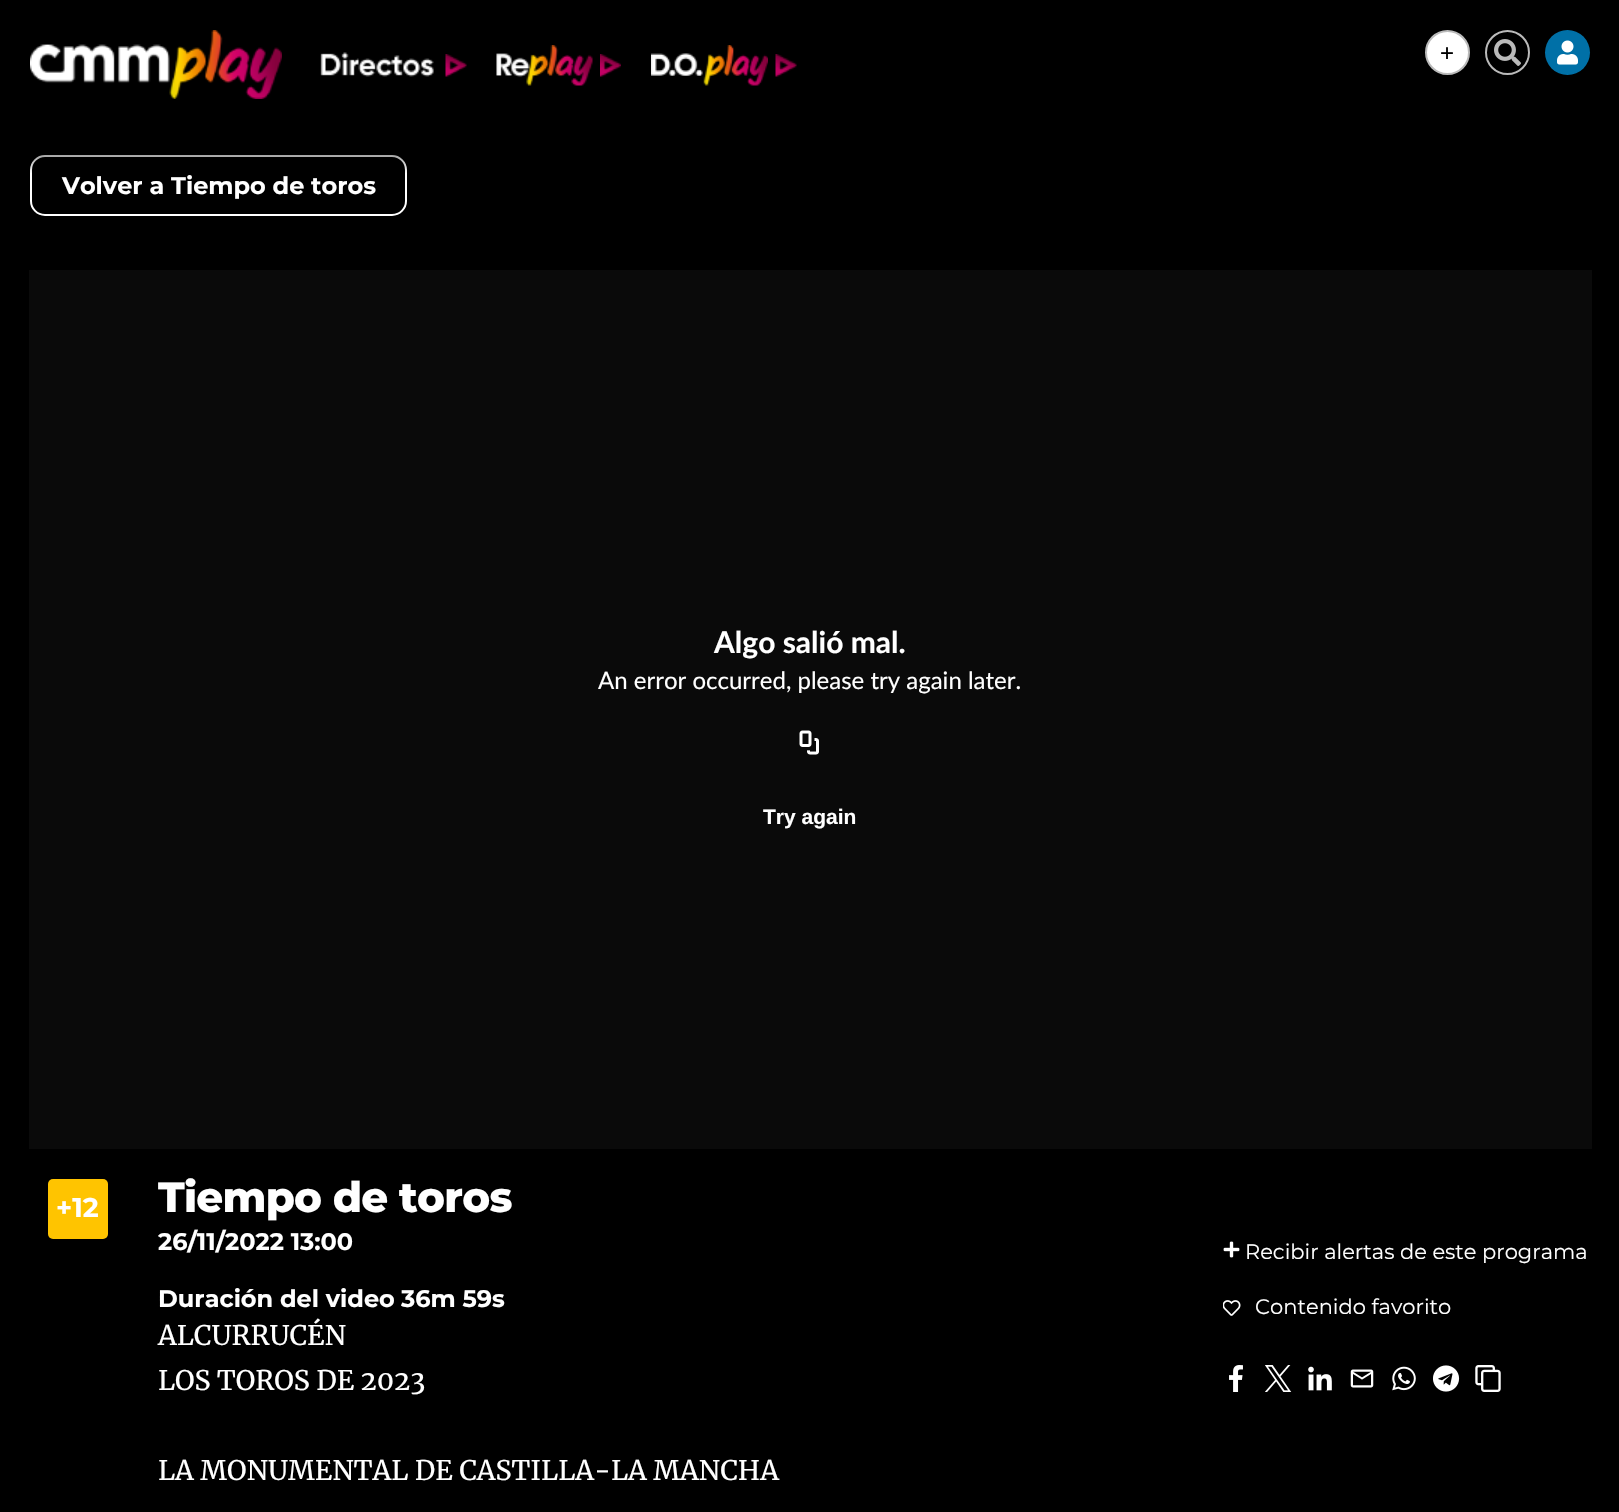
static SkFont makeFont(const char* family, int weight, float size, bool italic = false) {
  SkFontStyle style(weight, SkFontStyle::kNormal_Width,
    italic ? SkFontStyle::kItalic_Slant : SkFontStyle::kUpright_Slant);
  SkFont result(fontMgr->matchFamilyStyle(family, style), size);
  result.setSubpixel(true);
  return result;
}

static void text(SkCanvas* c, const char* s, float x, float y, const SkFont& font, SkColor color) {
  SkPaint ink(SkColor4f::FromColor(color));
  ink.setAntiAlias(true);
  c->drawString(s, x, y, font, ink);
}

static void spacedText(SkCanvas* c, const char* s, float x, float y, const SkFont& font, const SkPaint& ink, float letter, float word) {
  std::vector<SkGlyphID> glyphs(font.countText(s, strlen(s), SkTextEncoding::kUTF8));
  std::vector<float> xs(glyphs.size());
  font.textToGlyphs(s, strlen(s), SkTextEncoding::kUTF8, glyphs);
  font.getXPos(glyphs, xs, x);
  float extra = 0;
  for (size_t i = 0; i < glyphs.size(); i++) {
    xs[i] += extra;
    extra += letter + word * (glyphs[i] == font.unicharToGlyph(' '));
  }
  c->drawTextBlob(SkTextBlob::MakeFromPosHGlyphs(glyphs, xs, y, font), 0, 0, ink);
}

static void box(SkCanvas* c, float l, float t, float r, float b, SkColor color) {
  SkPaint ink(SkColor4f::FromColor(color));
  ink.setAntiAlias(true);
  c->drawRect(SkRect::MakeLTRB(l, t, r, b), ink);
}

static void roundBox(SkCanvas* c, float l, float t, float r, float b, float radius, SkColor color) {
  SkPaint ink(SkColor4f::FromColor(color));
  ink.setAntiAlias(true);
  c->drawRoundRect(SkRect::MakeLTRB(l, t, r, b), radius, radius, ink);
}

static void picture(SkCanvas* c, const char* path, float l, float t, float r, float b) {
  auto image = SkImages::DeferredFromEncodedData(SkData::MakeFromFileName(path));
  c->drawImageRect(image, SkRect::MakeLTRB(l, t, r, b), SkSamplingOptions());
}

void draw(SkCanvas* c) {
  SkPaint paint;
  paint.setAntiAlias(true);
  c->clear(0xff000000);
  paint.setStyle(SkPaint::kStroke_Style);
  paint.setStrokeWidth(2);
  paint.setColor(0xffffffff);
  c->drawRoundRect(SkRect::MakeLTRB(31, 156, 406, 215), 14, 14, paint);
  paint.setStyle(SkPaint::kFill_Style);
  {
    const SkColor colors[] = {0x00000000, 0xe8000000, 0xff000000};
    const float stops[] = {0, 0.28f, 1};
    const SkPoint ends[] = {{810, 174}, {810, 0}};
    paint.setShader(SkGradientShader::MakeLinear(ends, colors, stops, 3, SkTileMode::kClamp));
    paint.setAlpha(255);
  }
  c->drawRect(SkRect::MakeLTRB(30, 155, 407, 173), paint);
  picture(c, "img_01.png", 30, 30, 282, 99);
  picture(c, "img_02.png", 320, 52, 434, 77);
  picture(c, "img_03.png", 445, 54, 467, 77);
  picture(c, "img_04.png", 496, 45, 593, 86);
  picture(c, "img_05.png", 600, 54, 621, 77);
  picture(c, "img_06.png", 651, 45, 768, 86);
  picture(c, "img_03.png", 775, 54, 797, 77);
  paint.setShader(nullptr);
  paint.setColor(0xffffffff);
  c->drawCircle(1447.5f, 52.5f, 21.5f, paint);
  paint.setStyle(SkPaint::kStroke_Style);
  paint.setColor(0xffbababa);
  c->drawCircle(1447.5f, 52.5f, 21.5f, paint);
  SkFont face1 = makeFont("Liberation Sans", 400, 24);
  text(c, "+", 1440, 61, face1, 0xff000000);
  c->drawCircle(1507.5f, 52.5f, 21.5f, paint);
  picture(c, "img_07.png", 1494, 39, 1521, 66);
  paint.setStyle(SkPaint::kFill_Style);
  paint.setColor(0xff0070a7);
  c->drawCircle(1567.5f, 52.5f, 22.5f, paint);
  picture(c, "img_08.png", 1557, 40, 1578, 65);
  SkFont face2 = makeFont("Montserrat", 700, 24);
  text(c, "Volver a Tiempo de toros", 62, 194, face2, 0xffffffff);
  box(c, 29, 270, 1592, 1149, 0xff0a0a0a);
  SkFont face3 = makeFont("Lato", 700, 30);
  text(c, "Algo salió mal.", 714, 653, face3, 0xffffffff);
  SkFont face4 = makeFont("Lato", 400, 24);
  text(c, "An error occurred, please try again later.", 598, 689, face4, 0xffffffff);
  picture(c, "img_09.png", 799, 730, 819, 755);
  SkFont face5 = makeFont("Liberation Sans", 700, 21);
  text(c, "Try again", 763, 824, face5, 0xffffffff);
  roundBox(c, 48, 1179, 108, 1239, 5, 0xffffc400);
  SkFont face6 = makeFont("Montserrat", 700, 27);
  text(c, "+12", 56, 1217, face6, 0xffffffff);
  SkFont face7 = makeFont("Montserrat", 800, 42);
  paint.setColor(0xffffffff);
  spacedText(c, "Tiempo de toros", 158, 1212, face7, paint, -0.75f, 0);
  text(c, "26/11/2022 13:00", 158, 1250, face2, 0xffffffff);
  text(c, "Duración del video", 158, 1307, face2, 0xffffffff);
  text(c, "36m 59s", 401, 1307, face2, 0xffffffff);
  SkFont face8 = makeFont("Merriweather", 400, 27);
  text(c, "ALCURRUCÉN", 158, 1345, face8, 0xffffffff);
  text(c, "LOS TOROS DE 2023", 158, 1390, face8, 0xffffffff);
  text(c, "LA MONUMENTAL DE CASTILLA-LA MANCHA", 158, 1480, face8, 0xffffffff);
  picture(c, "img_10.png", 1223, 1241, 1240, 1258);
  SkFont face9 = makeFont("Montserrat", 400, 21);
  text(c, "Recibir alertas de este programa", 1245, 1259, face9, 0xffffffff);
  picture(c, "img_11.png", 1223, 1300, 1241, 1316);
  text(c, "Contenido favorito", 1255, 1314, face9, 0xffffffff);
  picture(c, "img_12.png", 1229, 1365, 1243, 1392);
  picture(c, "img_13.png", 1265, 1365, 1292, 1392);
  picture(c, "img_14.png", 1308, 1366, 1332, 1391);
  picture(c, "img_15.png", 1350, 1369, 1374, 1388);
  picture(c, "img_16.png", 1392, 1366, 1416, 1391);
  picture(c, "img_17.png", 1433, 1365, 1460, 1392);
  picture(c, "img_18.png", 1475, 1365, 1501, 1392);
}
